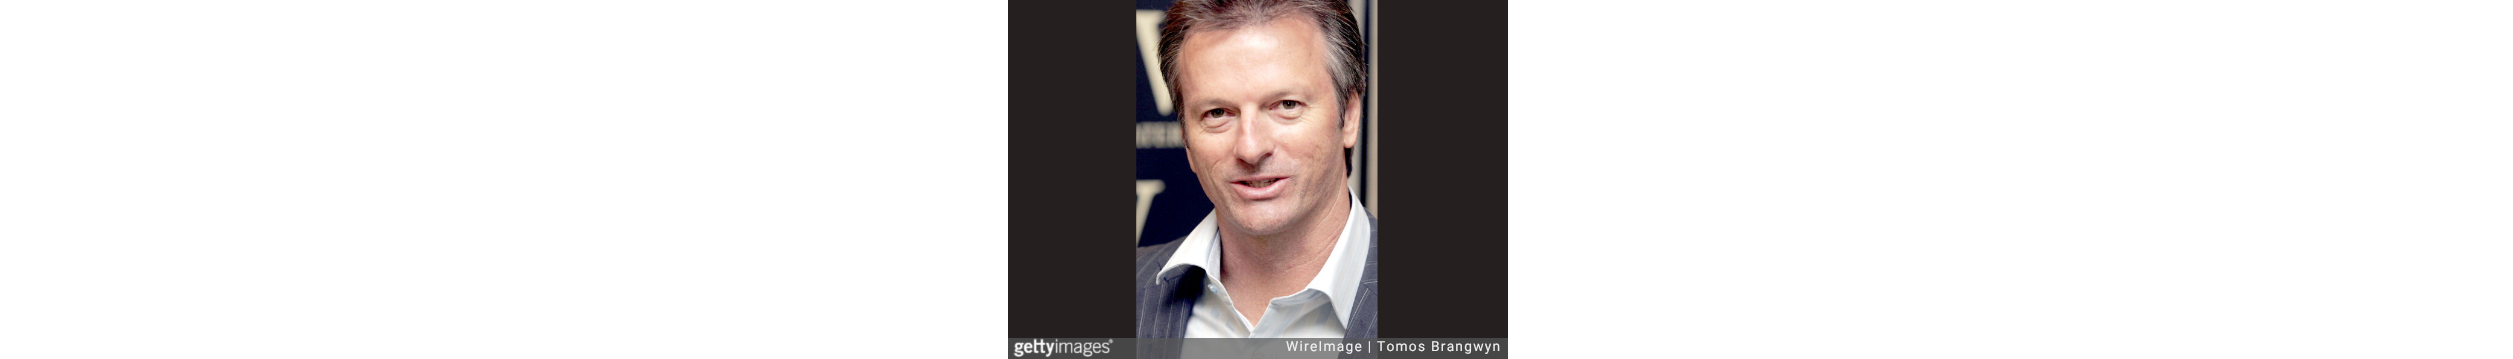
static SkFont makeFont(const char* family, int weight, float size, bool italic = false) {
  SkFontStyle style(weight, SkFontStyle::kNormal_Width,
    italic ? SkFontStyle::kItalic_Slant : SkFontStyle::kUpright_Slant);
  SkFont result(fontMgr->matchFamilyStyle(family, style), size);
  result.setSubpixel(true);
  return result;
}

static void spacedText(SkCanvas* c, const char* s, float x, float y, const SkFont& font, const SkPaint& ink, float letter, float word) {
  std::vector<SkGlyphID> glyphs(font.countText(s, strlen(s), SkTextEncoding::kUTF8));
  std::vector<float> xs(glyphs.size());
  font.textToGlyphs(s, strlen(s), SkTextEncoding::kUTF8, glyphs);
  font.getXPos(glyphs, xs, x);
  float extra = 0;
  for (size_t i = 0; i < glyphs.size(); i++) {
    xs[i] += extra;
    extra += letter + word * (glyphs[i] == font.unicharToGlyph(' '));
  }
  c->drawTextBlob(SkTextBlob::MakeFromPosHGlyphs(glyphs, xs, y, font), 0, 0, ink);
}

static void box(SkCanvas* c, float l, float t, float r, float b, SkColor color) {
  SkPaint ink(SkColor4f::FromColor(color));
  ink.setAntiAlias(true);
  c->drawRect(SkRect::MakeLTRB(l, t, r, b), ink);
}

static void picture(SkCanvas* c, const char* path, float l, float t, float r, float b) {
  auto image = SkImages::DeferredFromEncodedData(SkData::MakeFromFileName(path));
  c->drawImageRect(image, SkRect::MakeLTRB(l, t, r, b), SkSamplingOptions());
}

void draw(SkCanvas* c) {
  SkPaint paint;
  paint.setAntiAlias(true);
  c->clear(0xffffffff);
  box(c, 1008, 0, 1508, 359, 0xff251f20);
  picture(c, "img_01.png", 1136, 0, 1378, 359);
  box(c, 1008, 338, 1508, 359, 0xb3555555);
  picture(c, "img_02.png", 1013, 338, 1114, 357);
  SkFont face1 = makeFont("Roboto", 400, 13.75f);
  paint.setColor(0xffeeeeee);
  spacedText(c, "WireImage | Tomos Brangwyn", 1286, 351, face1, paint, 1.25f, 0);
}
